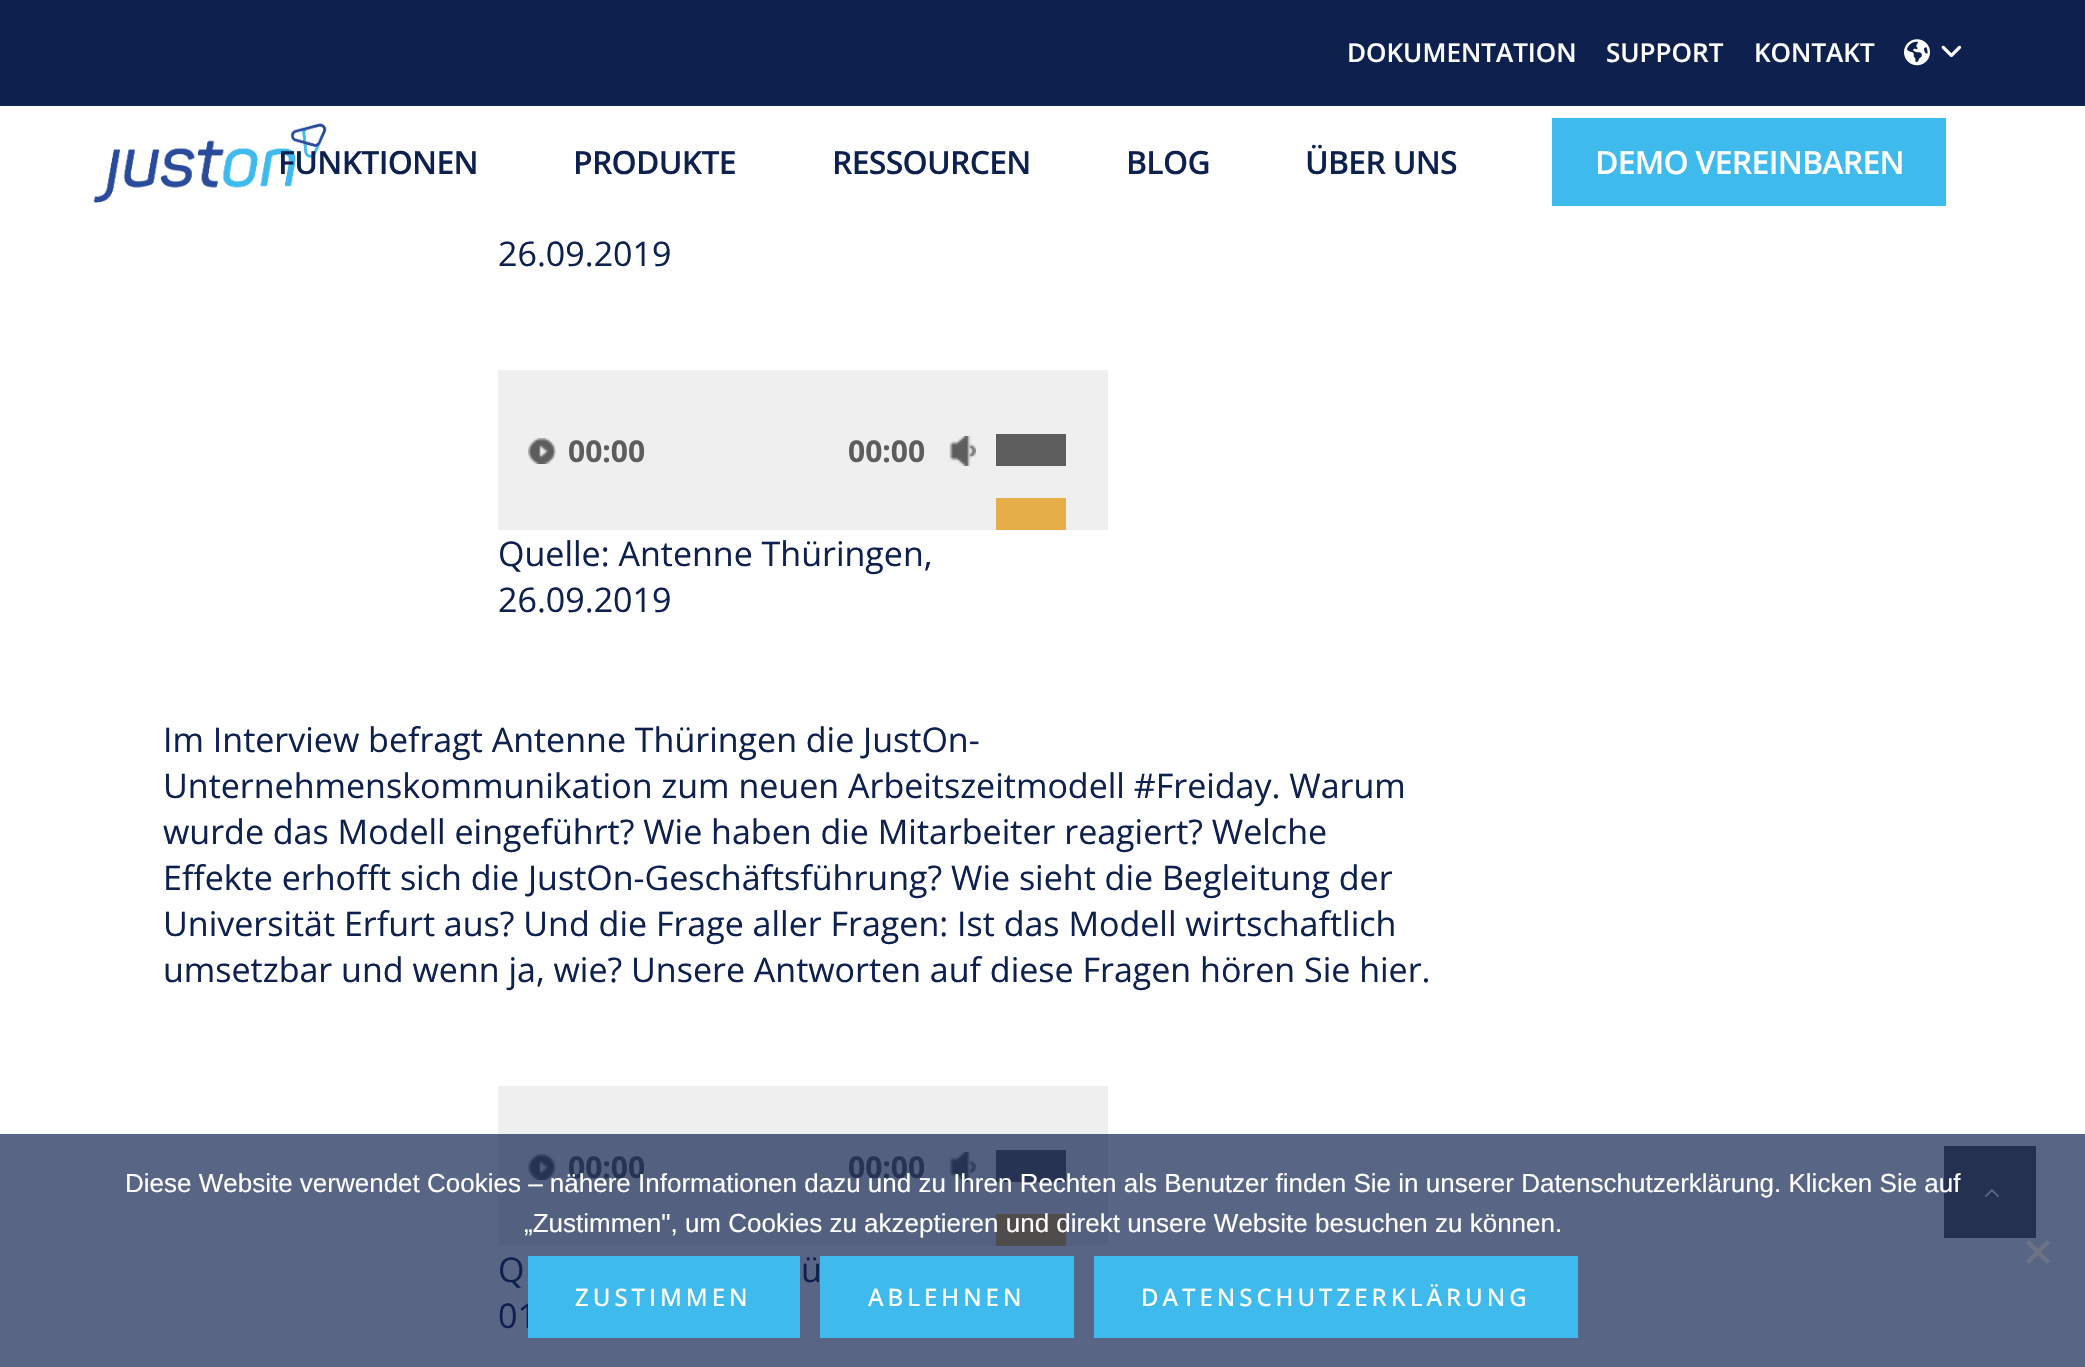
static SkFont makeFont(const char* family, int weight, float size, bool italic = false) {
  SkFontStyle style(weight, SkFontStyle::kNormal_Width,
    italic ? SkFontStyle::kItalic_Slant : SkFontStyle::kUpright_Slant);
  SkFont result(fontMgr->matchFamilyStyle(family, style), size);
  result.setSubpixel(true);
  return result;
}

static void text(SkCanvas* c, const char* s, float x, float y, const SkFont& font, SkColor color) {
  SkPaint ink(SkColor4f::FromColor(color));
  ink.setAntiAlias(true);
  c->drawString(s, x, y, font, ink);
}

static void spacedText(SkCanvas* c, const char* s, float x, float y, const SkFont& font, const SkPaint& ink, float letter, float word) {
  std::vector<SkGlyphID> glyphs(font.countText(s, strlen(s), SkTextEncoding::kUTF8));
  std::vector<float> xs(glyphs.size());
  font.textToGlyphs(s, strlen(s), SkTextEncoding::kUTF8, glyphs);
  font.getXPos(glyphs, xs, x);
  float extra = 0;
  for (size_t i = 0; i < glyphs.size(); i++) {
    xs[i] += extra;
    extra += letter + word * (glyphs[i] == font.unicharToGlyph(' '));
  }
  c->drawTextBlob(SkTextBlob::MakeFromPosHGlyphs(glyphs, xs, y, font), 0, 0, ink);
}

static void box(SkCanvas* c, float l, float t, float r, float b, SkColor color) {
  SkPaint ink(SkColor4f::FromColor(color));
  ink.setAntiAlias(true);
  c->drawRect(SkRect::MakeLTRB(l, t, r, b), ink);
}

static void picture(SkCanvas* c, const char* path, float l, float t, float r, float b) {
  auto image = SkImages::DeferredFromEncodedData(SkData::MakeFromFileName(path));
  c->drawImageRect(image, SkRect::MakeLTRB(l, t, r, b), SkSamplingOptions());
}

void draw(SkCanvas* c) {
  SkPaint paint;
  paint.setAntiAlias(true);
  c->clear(0xffffffff);
  box(c, 0, 1134, 2085, 1367, 0xff586585);
  box(c, 0, 0, 2085, 106, 0xff0d204e);
  SkFont face1 = makeFont("Open Sans", 600, 26);
  text(c, "DOKUMENTATION", 1347, 62, face1, 0xffffffff);
  text(c, "SUPPORT", 1606, 62, face1, 0xffffffff);
  text(c, "KONTAKT", 1754, 62, face1, 0xffffffff);
  picture(c, "img_01.png", 1904, 39, 1930, 66);
  picture(c, "img_02.png", 1941, 45, 1962, 58);
  picture(c, "img_03.png", 93, 123, 327, 203);
  SkFont face2 = makeFont("Open Sans", 600, 32);
  paint.setColor(0xff0d204e);
  spacedText(c, "FUNKTIONEN", 278, 174, face2, paint, -0.75f, 0);
  spacedText(c, "PRODUKTE", 573, 174, face2, paint, -0.75f, 0);
  spacedText(c, "RESSOURCEN", 832, 174, face2, paint, -0.75f, 0);
  spacedText(c, "BLOG", 1126, 174, face2, paint, -0.75f, 0);
  spacedText(c, "ÜBER UNS", 1305, 174, face2, paint, -0.75f, 0);
  box(c, 1552, 118, 1946, 206, 0xff3ebaec);
  paint.setColor(0xffffffff);
  spacedText(c, "DEMO VEREINBAREN", 1595, 174, face2, paint, -0.75f, 0);
  SkFont face3 = makeFont("Open Sans", 400, 34);
  text(c, "26.09.2019", 498, 266, face3, 0xff0d204e);
  box(c, 498, 370, 1108, 530, 0xffefefef);
  picture(c, "img_04.png", 528, 438, 556, 464);
  SkFont face4 = makeFont("Open Sans", 700, 30);
  text(c, "00:00", 568, 462, face4, 0xff5d5d5d);
  text(c, "00:00", 848, 462, face4, 0xff5d5d5d);
  picture(c, "img_05.png", 949, 436, 976, 466);
  box(c, 996, 434, 1066, 466, 0xff5d5d5d);
  box(c, 996, 498, 1066, 530, 0xffe6ae48);
  text(c, "Quelle: Antenne Thüringen,", 498, 566, face3, 0xff0d204e);
  text(c, "26.09.2019", 498, 612, face3, 0xff0d204e);
  text(c, "Im Interview befragt Antenne Thüringen die JustOn-", 163, 752, face3, 0xff0d204e);
  text(c, "Unternehmenskommunikation zum neuen Arbeitszeitmodell #Freiday. Warum", 163, 798, face3, 0xff0d204e);
  text(c, "wurde das Modell eingeführt? Wie haben die Mitarbeiter reagiert? Welche", 163, 844, face3, 0xff0d204e);
  text(c, "Effekte erhofft sich die JustOn-Geschäftsführung? Wie sieht die Begleitung der", 163, 890, face3, 0xff0d204e);
  text(c, "Universität Erfurt aus? Und die Frage aller Fragen: Ist das Modell wirtschaftlich", 163, 936, face3, 0xff0d204e);
  text(c, "umsetzbar und wenn ja, wie? Unsere Antworten auf diese Fragen hören Sie hier.", 163, 982, face3, 0xff0d204e);
  box(c, 498, 1086, 1108, 1134, 0xffefefef);
  box(c, 498, 1134, 1108, 1246, 0xff536080);
  picture(c, "img_06.png", 528, 1154, 556, 1180);
  text(c, "00:00", 568, 1178, face4, 0xff263353);
  text(c, "00:00", 848, 1178, face4, 0xff263353);
  picture(c, "img_07.png", 949, 1152, 976, 1182);
  box(c, 996, 1150, 1066, 1182, 0xff263353);
  box(c, 996, 1214, 1066, 1246, 0xff504c4c);
  text(c, "Q", 498, 1282, face3, 0xff0d204e);
  text(c, "ü", 801, 1282, face3, 0xff0d204e);
  text(c, "01", 498, 1328, face3, 0xff0d204e);
  box(c, 1944, 1146, 2036, 1238, 0xff243151);
  picture(c, "img_08.png", 1985, 1189, 1999, 1197);
  SkFont face5 = makeFont("Liberation Sans", 400, 26);
  text(c, "Diese Website verwendet Cookies – nähere Informationen dazu und zu Ihren Rechten als Benutzer finden Sie in unserer Datenschutzerklärung. Klicken Sie auf", 125, 1192, face5, 0xffffffff);
  text(c, "„Zustimmen\", um Cookies zu akzeptieren und direkt unsere Website besuchen zu können.", 524, 1232, face5, 0xffffffff);
  paint.setColor(0xff6c7382);
  c->drawPath(SkPathBuilder().moveTo(2047, 1240).lineTo(2050, 1243).lineTo(2029, 1264).lineTo(2026, 1261).close().detach(), paint);
  c->drawPath(SkPathBuilder().moveTo(2026, 1243).lineTo(2029, 1240).lineTo(2050, 1261).lineTo(2047, 1264).close().detach(), paint);
  box(c, 528, 1256, 800, 1338, 0xff3ebaec);
  SkFont face6 = makeFont("Open Sans", 500, 24);
  paint.setColor(0xffffffff);
  spacedText(c, "ZUSTIMMEN", 575, 1306, face6, paint, 4, 0);
  box(c, 820, 1256, 1074, 1338, 0xff3ebaec);
  spacedText(c, "ABLEHNEN", 868, 1306, face6, paint, 4, 0);
  box(c, 1094, 1256, 1578, 1338, 0xff3ebaec);
  spacedText(c, "DATENSCHUTZERKLÄRUNG", 1141, 1306, face6, paint, 4, 0);
}
